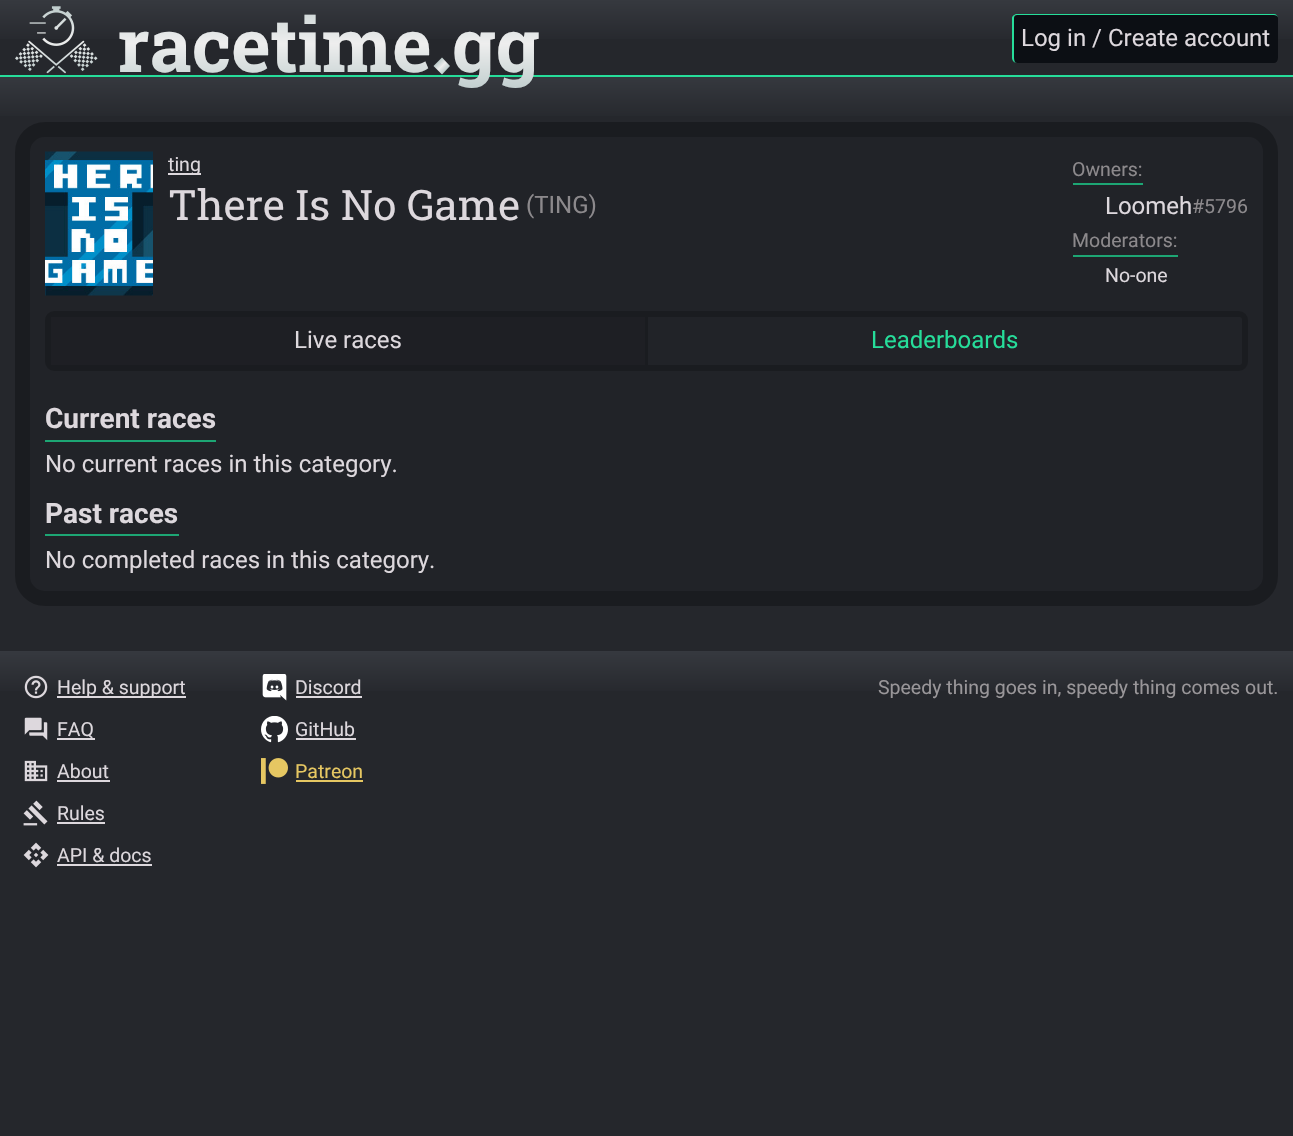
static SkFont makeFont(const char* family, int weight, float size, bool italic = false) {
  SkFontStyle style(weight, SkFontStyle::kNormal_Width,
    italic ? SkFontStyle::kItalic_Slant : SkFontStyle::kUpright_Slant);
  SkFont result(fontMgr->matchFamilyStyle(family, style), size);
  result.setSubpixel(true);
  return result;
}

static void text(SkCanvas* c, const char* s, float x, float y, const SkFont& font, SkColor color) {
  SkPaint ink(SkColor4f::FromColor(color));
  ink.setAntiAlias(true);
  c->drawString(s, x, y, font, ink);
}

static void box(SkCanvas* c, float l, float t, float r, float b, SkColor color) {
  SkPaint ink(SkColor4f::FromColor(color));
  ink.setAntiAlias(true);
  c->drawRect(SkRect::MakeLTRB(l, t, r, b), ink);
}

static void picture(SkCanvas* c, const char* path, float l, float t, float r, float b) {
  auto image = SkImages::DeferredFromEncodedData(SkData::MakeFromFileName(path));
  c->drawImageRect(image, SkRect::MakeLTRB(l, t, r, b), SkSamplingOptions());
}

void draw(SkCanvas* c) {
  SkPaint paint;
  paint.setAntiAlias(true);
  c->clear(0xff25272c);
  {
    const SkColor colors[] = {0xff36393f, 0xff25272c};
    const float stops[] = {0, 0.6f};
    const SkPoint ends[] = {{647, 0}, {647, 75}};
    paint.setShader(SkGradientShader::MakeLinear(ends, colors, stops, 2, SkTileMode::kClamp));
    paint.setAlpha(255);
  }
  c->drawRect(SkRect::MakeLTRB(0, 0, 1293, 39), paint);
  box(c, 0, 75, 1293, 77, 0xff26dd9a);
  picture(c, "img_01.png", 15, 6, 98, 74);
  SkFont face1 = makeFont("Roboto Slab", 700, 75);
  {
    const SkColor colors[] = {0xffbecccc, 0xffeeeeee, 0xffbecccc};
    const float stops[] = {0, 0.5f, 1};
    const SkPoint ends[] = {{278, -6}, {278, 93}};
    paint.setShader(SkGradientShader::MakeLinear(ends, colors, stops, 3, SkTileMode::kClamp));
    paint.setAlpha(255);
  }
  c->drawString("racetime", 117, 72, face1, paint);
  {
    const SkColor colors[] = {0xffbecccc, 0xffeeeeee, 0xffbecccc};
    const float stops[] = {0, 0.5f, 1};
    const SkPoint ends[] = {{438, 62}, {446, 70}};
    paint.setShader(SkGradientShader::MakeLinear(ends, colors, stops, 3, SkTileMode::kClamp));
    paint.setAlpha(255);
  }
  c->drawPath(SkPathBuilder().moveTo(433.5f, 66).lineTo(442, 57.5f).lineTo(450, 66).lineTo(442, 74.5f).close().detach(), paint);
  {
    const SkColor colors[] = {0xff36393f, 0xff25272c};
    const float stops[] = {0, 0.08f};
    const SkPoint ends[] = {{647, 76}, {647, 651}};
    paint.setShader(SkGradientShader::MakeLinear(ends, colors, stops, 2, SkTileMode::kClamp));
    paint.setAlpha(255);
  }
  c->drawRect(SkRect::MakeLTRB(0, 77, 1293, 116), paint);
  {
    const SkColor colors[] = {0xffbecccc, 0xffeeeeee, 0xffbecccc};
    const float stops[] = {0, 0.5f, 1};
    const SkPoint ends[] = {{278, -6}, {278, 93}};
    paint.setShader(SkGradientShader::MakeLinear(ends, colors, stops, 3, SkTileMode::kClamp));
    paint.setAlpha(255);
  }
  c->drawString("gg", 452, 72, face1, paint);
  paint.setShader(nullptr);
  paint.setColor(0xff0c0f14);
  c->drawPath(SkPathBuilder().moveTo(1017, 15).lineTo(1274, 15).cubicTo(1276, 15, 1278, 16, 1278, 18).lineTo(1278, 58).cubicTo(1278, 61, 1276, 63, 1274, 63).lineTo(1017, 63).cubicTo(1015, 63, 1014, 61, 1014, 58).lineTo(1014, 18).cubicTo(1014, 16, 1015, 15, 1017, 15).close().detach(), paint);
  paint.setColor(0xff26dd9a);
  c->drawPath(SkPathBuilder(SkPathFillType::kEvenOdd).moveTo(1017, 14).lineTo(1274, 14).cubicTo(1276, 14, 1278, 16, 1278, 18).lineTo(1278, 58).cubicTo(1278, 61, 1276, 63, 1274, 63).lineTo(1017, 63).cubicTo(1015, 63, 1012, 61, 1012, 58).lineTo(1012, 18).cubicTo(1012, 16, 1015, 14, 1017, 14).close().moveTo(1017, 15).lineTo(1274, 15).cubicTo(1276, 15, 1278, 16, 1278, 18).lineTo(1278, 58).cubicTo(1278, 61, 1276, 63, 1274, 63).lineTo(1017, 63).cubicTo(1015, 63, 1014, 61, 1014, 58).lineTo(1014, 18).cubicTo(1014, 16, 1015, 15, 1017, 15).close().detach(), paint);
  SkFont face2 = makeFont("Roboto", 400, 24);
  text(c, "Log in / Create account", 1021, 46, face2, 0xffddd8dd);
  paint.setColor(0xff212328);
  c->drawRoundRect(SkRect::MakeLTRB(22.5f, 129.5f, 1270.5f, 598.5f), 22.5f, 22.5f, paint);
  paint.setStyle(SkPaint::kStroke_Style);
  paint.setStrokeWidth(15);
  paint.setColor(0xff1a1c20);
  c->drawRoundRect(SkRect::MakeLTRB(22.5f, 129.5f, 1270.5f, 598.5f), 22.5f, 22.5f, paint);
  picture(c, "img_02.png", 45, 151, 153, 296);
  box(c, 168, 173, 201, 175, 0xffddd8dd);
  SkFont face3 = makeFont("Roboto", 400, 19.5f);
  text(c, "ting", 168, 171, face3, 0xffddd8dd);
  SkFont face4 = makeFont("Roboto Slab", 400, 42);
  text(c, "There Is No Game", 168, 220, face4, 0xffddd8dd);
  text(c, "(TING)", 526, 213, face2, 0xff8c898c);
  box(c, 1073, 183, 1143, 185, 0xff1da674);
  text(c, "Owners:", 1072, 176, face3, 0xff8c898c);
  text(c, "Loomeh", 1105, 214, face2, 0xffddd8dd);
  text(c, "#5796", 1192, 213, face3, 0xff8c898c);
  box(c, 1073, 255, 1178, 257, 0xff1da674);
  text(c, "Moderators:", 1072, 247, face3, 0xff8c898c);
  text(c, "No-one", 1105, 282, face3, 0xffddd8dd);
  paint.setStrokeWidth(6);
  c->drawRoundRect(SkRect::MakeLTRB(48, 314, 1245, 368), 6, 6, paint);
  box(c, 51, 317, 645, 365, 0xff1e1f24);
  text(c, "Live races", 294, 348, face2, 0xffddd8dd);
  box(c, 645, 317, 648, 365, 0xff1a1c20);
  text(c, "Leaderboards", 871, 348, face2, 0xff26dd9a);
  box(c, 45, 440, 216, 442, 0xff1da674);
  SkFont face5 = makeFont("Roboto", 700, 28);
  text(c, "Current races", 45, 428, face5, 0xffddd8dd);
  text(c, "No current races in this category.", 45, 472, face2, 0xffddd8dd);
  box(c, 45, 534, 179, 536, 0xff1da674);
  text(c, "Past races", 45, 523, face5, 0xffddd8dd);
  text(c, "No completed races in this category.", 45, 568, face2, 0xffddd8dd);
  paint.setStyle(SkPaint::kFill_Style);
  {
    const SkColor colors[] = {0xff36393f, 0xff25272c};
    const float stops[] = {0, 0.19f};
    const SkPoint ends[] = {{647, 651}, {647, 891}};
    paint.setShader(SkGradientShader::MakeLinear(ends, colors, stops, 2, SkTileMode::kClamp));
    paint.setAlpha(255);
  }
  c->drawRect(SkRect::MakeLTRB(0, 651, 1293, 691), paint);
  picture(c, "img_03.png", 24, 675, 48, 699);
  box(c, 57, 696, 186, 698, 0xffddd8dd);
  text(c, "Help & support", 57, 694, face3, 0xffddd8dd);
  picture(c, "img_04.png", 24, 717, 48, 741);
  box(c, 57, 738, 95, 740, 0xffddd8dd);
  text(c, "FAQ", 57, 736, face3, 0xffddd8dd);
  picture(c, "img_05.png", 24, 760, 48, 782);
  text(c, "About", 57, 778, face3, 0xffddd8dd);
  box(c, 57, 780, 110, 782, 0xffddd8dd);
  picture(c, "img_06.png", 23, 800, 48, 826);
  text(c, "Rules", 57, 820, face3, 0xffddd8dd);
  box(c, 57, 822, 105, 824, 0xffddd8dd);
  picture(c, "img_07.png", 23, 842, 49, 868);
  text(c, "API & docs", 57, 862, face3, 0xffddd8dd);
  box(c, 57, 864, 152, 866, 0xffddd8dd);
  picture(c, "img_08.png", 262, 674, 287, 701);
  text(c, "Discord", 295, 694, face3, 0xffddd8dd);
  box(c, 296, 696, 362, 698, 0xffddd8dd);
  picture(c, "img_09.png", 261, 716, 288, 743);
  text(c, "GitHub", 295, 736, face3, 0xffddd8dd);
  box(c, 296, 738, 356, 740, 0xffddd8dd);
  picture(c, "img_10.png", 261, 758, 288, 784);
  text(c, "Patreon", 295, 778, face3, 0xffe6c762);
  box(c, 296, 780, 363, 782, 0xffe6c762);
  text(c, "Speedy thing goes in, speedy thing comes out.", 878, 694, face3, 0xff999699);
}
